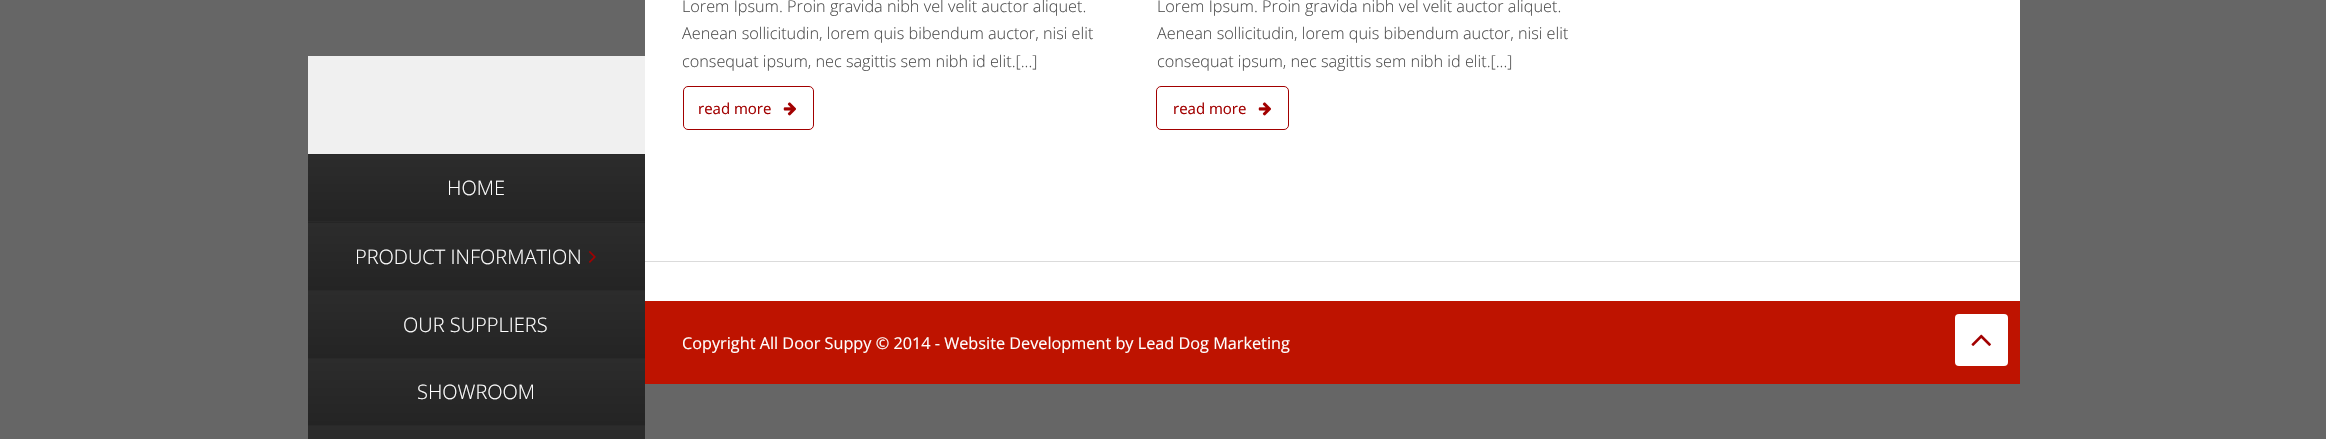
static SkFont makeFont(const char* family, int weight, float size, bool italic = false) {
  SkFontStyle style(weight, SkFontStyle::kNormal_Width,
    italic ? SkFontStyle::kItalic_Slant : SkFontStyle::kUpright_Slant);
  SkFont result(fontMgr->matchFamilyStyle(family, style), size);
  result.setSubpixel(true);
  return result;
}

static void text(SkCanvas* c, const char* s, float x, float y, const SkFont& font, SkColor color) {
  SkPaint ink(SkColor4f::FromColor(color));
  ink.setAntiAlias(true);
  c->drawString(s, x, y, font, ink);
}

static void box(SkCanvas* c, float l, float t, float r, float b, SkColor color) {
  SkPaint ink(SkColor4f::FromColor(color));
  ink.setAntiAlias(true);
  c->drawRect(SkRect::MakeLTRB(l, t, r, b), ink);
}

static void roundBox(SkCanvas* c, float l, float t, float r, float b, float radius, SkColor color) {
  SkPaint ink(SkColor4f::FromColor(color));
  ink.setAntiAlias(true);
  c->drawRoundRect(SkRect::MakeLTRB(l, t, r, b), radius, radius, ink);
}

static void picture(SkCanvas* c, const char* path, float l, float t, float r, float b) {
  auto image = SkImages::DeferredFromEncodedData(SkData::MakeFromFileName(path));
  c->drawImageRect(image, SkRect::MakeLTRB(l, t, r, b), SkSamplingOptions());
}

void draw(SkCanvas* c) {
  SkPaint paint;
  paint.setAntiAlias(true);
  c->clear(0xff666666);
  box(c, 308, 56, 645, 154, 0xfff0f0f0);
  {
    const SkColor colors[] = {0xff242424, 0xff2c2c2c};
    const float stops[] = {0, 1};
    const SkPoint ends[] = {{476, 221}, {476, 155}};
    paint.setShader(SkGradientShader::MakeLinear(ends, colors, stops, 2, SkTileMode::kClamp));
    paint.setAlpha(255);
  }
  c->drawRect(SkRect::MakeLTRB(308, 155, 645, 221), paint);
  box(c, 308, 154, 645, 155, 0xff292929);
  SkFont face1 = makeFont("Open Sans", 300, 20);
  text(c, "HOME", 447, 195, face1, 0xffffffff);
  box(c, 308, 222, 645, 223, 0xff252525);
  {
    const SkColor colors[] = {0xff242424, 0xff2c2c2c};
    const float stops[] = {0, 1};
    const SkPoint ends[] = {{476, 290}, {476, 223}};
    paint.setShader(SkGradientShader::MakeLinear(ends, colors, stops, 2, SkTileMode::kClamp));
    paint.setAlpha(255);
  }
  c->drawRect(SkRect::MakeLTRB(308, 223, 645, 290), paint);
  box(c, 308, 221, 645, 222, 0xff292929);
  text(c, "PRODUCT INFORMATION", 355, 264, face1, 0xffffffff);
  picture(c, "img_01.png", 589, 251, 596, 263);
  {
    const SkColor colors[] = {0xff242424, 0xff2c2c2c};
    const float stops[] = {0, 1};
    const SkPoint ends[] = {{476, 358}, {476, 291}};
    paint.setShader(SkGradientShader::MakeLinear(ends, colors, stops, 2, SkTileMode::kClamp));
    paint.setAlpha(255);
  }
  c->drawRect(SkRect::MakeLTRB(308, 291, 645, 358), paint);
  box(c, 308, 290, 645, 291, 0xff292929);
  text(c, "OUR SUPPLIERS", 403, 332, face1, 0xffffffff);
  {
    const SkColor colors[] = {0xff242424, 0xff2c2c2c};
    const float stops[] = {0, 1};
    const SkPoint ends[] = {{476, 425}, {476, 359}};
    paint.setShader(SkGradientShader::MakeLinear(ends, colors, stops, 2, SkTileMode::kClamp));
    paint.setAlpha(255);
  }
  c->drawRect(SkRect::MakeLTRB(308, 359, 645, 425), paint);
  box(c, 308, 358, 645, 359, 0xff292929);
  text(c, "SHOWROOM", 417, 399, face1, 0xffffffff);
  {
    const SkColor colors[] = {0xff242424, 0xff2c2c2c};
    const float stops[] = {0, 1};
    const SkPoint ends[] = {{476, 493}, {476, 426}};
    paint.setShader(SkGradientShader::MakeLinear(ends, colors, stops, 2, SkTileMode::kClamp));
    paint.setAlpha(255);
  }
  c->drawRect(SkRect::MakeLTRB(308, 426, 645, 439), paint);
  box(c, 308, 425, 645, 426, 0xff292929);
  box(c, 645, 0, 2020, 261, 0xffffffff);
  SkFont face2 = makeFont("Open Sans", 300, 16.25f);
  text(c, "Lorem Ipsum. Proin gravida nibh vel velit auctor aliquet.", 682, 12, face2, 0xff4f4f4f);
  text(c, "Aenean sollicitudin, lorem quis bibendum auctor, nisi elit", 682, 39, face2, 0xff4f4f4f);
  text(c, "consequat ipsum, nec sagittis sem nibh id elit.[...]", 682, 67, face2, 0xff4f4f4f);
  paint.setStyle(SkPaint::kStroke_Style);
  paint.setStrokeWidth(1);
  paint.setShader(nullptr);
  paint.setColor(0xffa20000);
  c->drawRoundRect(SkRect::MakeLTRB(683.5f, 86.5f, 813.5f, 129.5f), 4.5f, 4.5f, paint);
  SkFont face3 = makeFont("Open Sans", 400, 15);
  text(c, "read more", 698, 114, face3, 0xffa20000);
  picture(c, "img_02.png", 783, 102, 796, 116);
  text(c, "Lorem Ipsum. Proin gravida nibh vel velit auctor aliquet.", 1157, 12, face2, 0xff4f4f4f);
  text(c, "Aenean sollicitudin, lorem quis bibendum auctor, nisi elit", 1157, 39, face2, 0xff4f4f4f);
  text(c, "consequat ipsum, nec sagittis sem nibh id elit.[...]", 1157, 67, face2, 0xff4f4f4f);
  c->drawRoundRect(SkRect::MakeLTRB(1156.5f, 86.5f, 1288.5f, 129.5f), 4.5f, 4.5f, paint);
  text(c, "read more", 1173, 114, face3, 0xffa20000);
  picture(c, "img_02.png", 1258, 102, 1271, 116);
  box(c, 645, 262, 2020, 301, 0xffffffff);
  box(c, 645, 261, 2020, 262, 0xffdbdbdb);
  box(c, 645, 301, 2020, 384, 0xffbe1300);
  SkFont face4 = makeFont("Open Sans", 400, 16.25f);
  text(c, "Copyright All Door Suppy © 2014 - Website Development by Lead Dog Marketing", 682, 349, face4, 0xffffffff);
  roundBox(c, 1955, 314, 2008, 366, 4, 0xffffffff);
  picture(c, "img_03.png", 1971, 334, 1991, 346);
}
